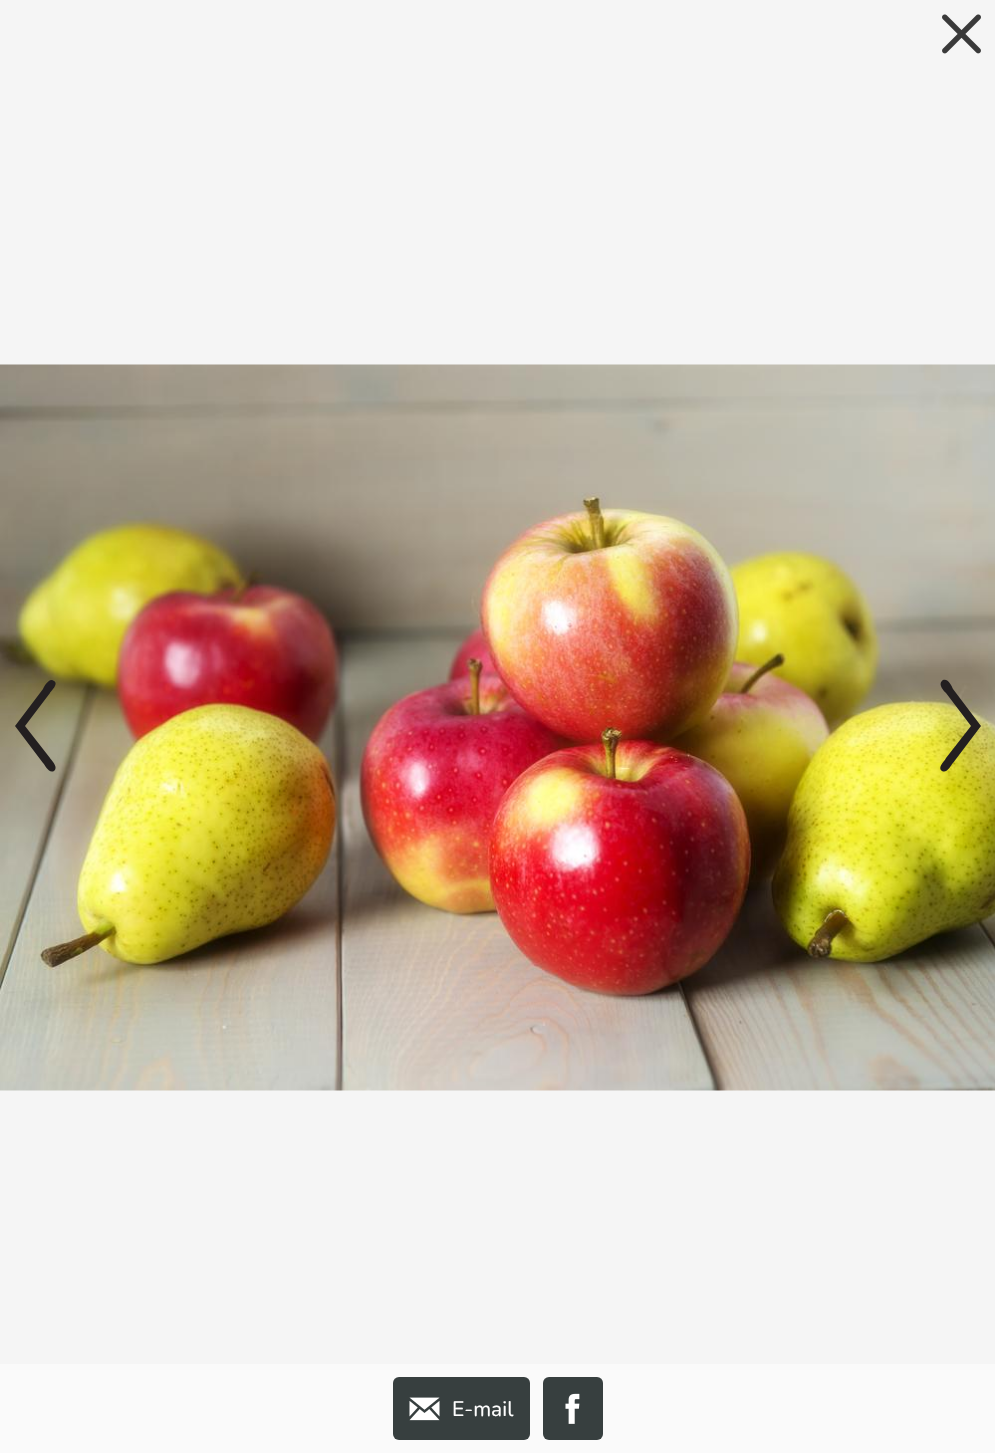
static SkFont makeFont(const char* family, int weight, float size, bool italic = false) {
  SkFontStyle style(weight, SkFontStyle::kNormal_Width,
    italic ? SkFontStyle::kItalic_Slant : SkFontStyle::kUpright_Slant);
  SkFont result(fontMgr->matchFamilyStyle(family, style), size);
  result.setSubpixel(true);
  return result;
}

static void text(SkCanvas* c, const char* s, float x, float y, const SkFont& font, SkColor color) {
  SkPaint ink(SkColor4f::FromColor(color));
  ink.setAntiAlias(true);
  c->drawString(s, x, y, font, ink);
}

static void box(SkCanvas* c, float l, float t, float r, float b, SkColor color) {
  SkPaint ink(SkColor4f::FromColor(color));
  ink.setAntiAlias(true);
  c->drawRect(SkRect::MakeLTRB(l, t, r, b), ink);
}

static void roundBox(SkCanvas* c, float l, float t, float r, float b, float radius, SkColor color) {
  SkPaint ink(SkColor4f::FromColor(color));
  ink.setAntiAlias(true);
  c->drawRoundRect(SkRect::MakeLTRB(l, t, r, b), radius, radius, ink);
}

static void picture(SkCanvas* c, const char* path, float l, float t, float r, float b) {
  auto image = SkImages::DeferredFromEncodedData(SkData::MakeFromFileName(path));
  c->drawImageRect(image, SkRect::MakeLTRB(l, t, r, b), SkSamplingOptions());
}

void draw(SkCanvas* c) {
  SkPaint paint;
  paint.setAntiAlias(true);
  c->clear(0xfff5f5f5);
  picture(c, "img_01.png", 942, 14, 981, 54);
  picture(c, "img_02.png", 0, 364, 995, 1091);
  paint.setColor(0xff231f20);
  c->drawPath(SkPathBuilder().moveTo(54, 681).cubicTo(49, 677, 44, 687, 43, 689).lineTo(15, 726).lineTo(43, 763).cubicTo(45, 765, 49, 774, 54, 771).cubicTo(59, 767, 51, 760, 50, 758).lineTo(25, 726).lineTo(50, 693).cubicTo(51, 691, 59, 684, 54, 681).close().detach(), paint);
  c->drawPath(SkPathBuilder().moveTo(942, 771).cubicTo(947, 774, 951, 765, 953, 763).lineTo(981, 726).lineTo(953, 689).cubicTo(952, 686, 948, 678, 943, 680).cubicTo(937, 684, 944, 691, 946, 693).lineTo(971, 726).lineTo(946, 758).cubicTo(945, 761, 937, 767, 942, 771).close().detach(), paint);
  box(c, 0, 1364, 995, 1453, 0xfffafafa);
  roundBox(c, 393, 1377, 530, 1440, 6, 0xff373f3f);
  picture(c, "img_03.png", 409, 1397, 440, 1421);
  SkFont face1 = makeFont("Nunito", 400, 21);
  text(c, "E-mail", 452, 1416, face1, 0xffffffff);
  roundBox(c, 543, 1377, 603, 1440, 6, 0xff373f3f);
  picture(c, "img_04.png", 565, 1393, 580, 1424);
}
